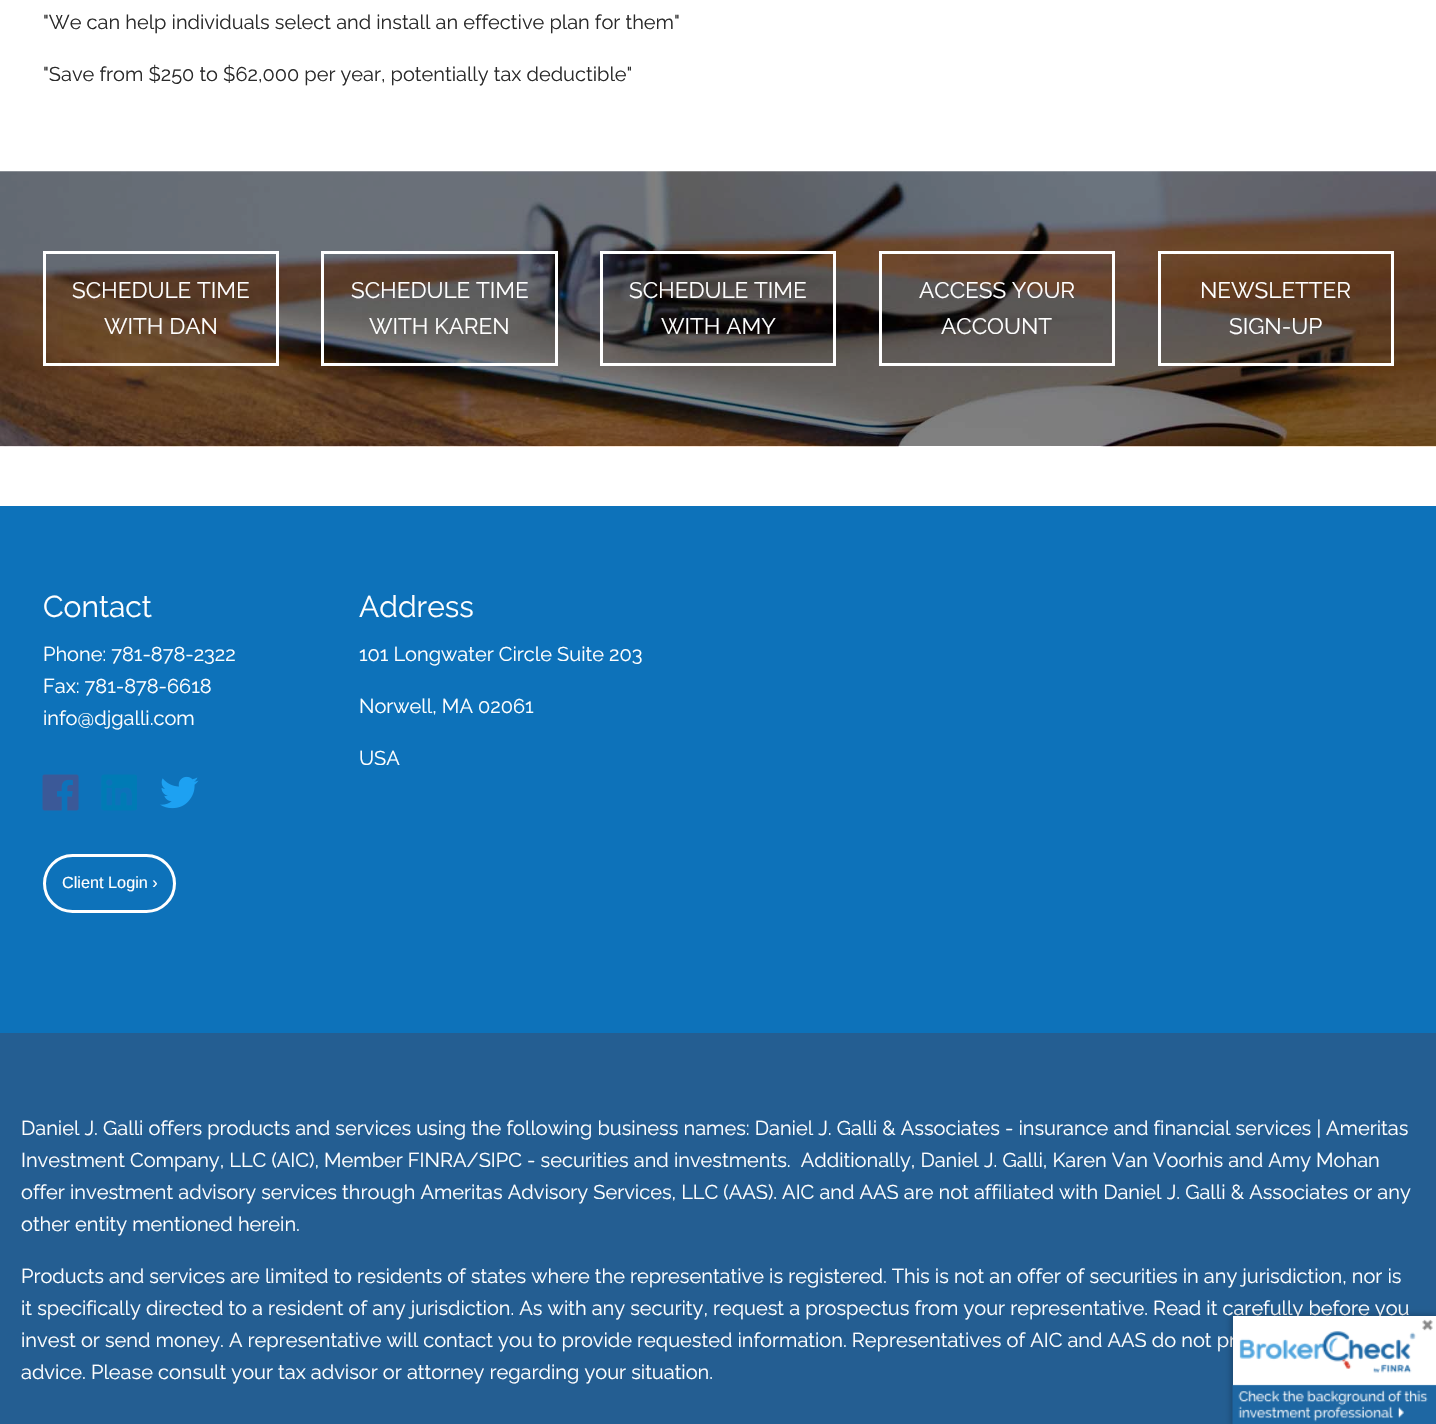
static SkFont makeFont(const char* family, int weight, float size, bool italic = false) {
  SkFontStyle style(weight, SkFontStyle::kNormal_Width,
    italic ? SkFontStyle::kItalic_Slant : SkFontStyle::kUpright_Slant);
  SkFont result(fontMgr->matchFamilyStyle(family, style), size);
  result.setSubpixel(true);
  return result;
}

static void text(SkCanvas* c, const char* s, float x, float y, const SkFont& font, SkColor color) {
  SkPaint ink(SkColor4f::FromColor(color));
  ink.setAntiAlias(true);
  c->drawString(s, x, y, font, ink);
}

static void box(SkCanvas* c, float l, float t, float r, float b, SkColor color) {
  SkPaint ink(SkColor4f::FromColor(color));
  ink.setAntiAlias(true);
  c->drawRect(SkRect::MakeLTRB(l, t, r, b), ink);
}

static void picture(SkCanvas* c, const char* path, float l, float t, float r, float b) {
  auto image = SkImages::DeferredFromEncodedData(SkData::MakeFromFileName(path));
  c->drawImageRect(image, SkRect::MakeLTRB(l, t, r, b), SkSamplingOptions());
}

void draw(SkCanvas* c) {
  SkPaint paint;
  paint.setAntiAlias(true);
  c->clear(0xffffffff);
  SkFont face1 = makeFont("Raleway", 100, 20);
  text(c, "\"We can help individuals select and install an effective plan for them\"", 43, 29, face1, 0xff2a2a2a);
  text(c, "\"Save from $250 to $62,000 per year, potentially tax deductible\"", 43, 81, face1, 0xff2a2a2a);
  picture(c, "img_01.png", 0, 171, 1436, 447);
  paint.setStyle(SkPaint::kStroke_Style);
  paint.setStrokeWidth(3);
  paint.setColor(0xffffffff);
  c->drawRect(SkRect::MakeLTRB(44.5f, 252.5f, 277.5f, 364.5f), paint);
  SkFont face2 = makeFont("Raleway", 100, 22.5f);
  text(c, "SCHEDULE TIME", 72, 298, face2, 0xffffffff);
  text(c, "WITH DAN", 104, 334, face2, 0xffffffff);
  c->drawRect(SkRect::MakeLTRB(322.5f, 252.5f, 556.5f, 364.5f), paint);
  text(c, "SCHEDULE TIME", 351, 298, face2, 0xffffffff);
  text(c, "WITH KAREN", 369, 334, face2, 0xffffffff);
  c->drawRect(SkRect::MakeLTRB(601.5f, 252.5f, 834.5f, 364.5f), paint);
  text(c, "SCHEDULE TIME", 629, 298, face2, 0xffffffff);
  text(c, "WITH AMY", 661, 334, face2, 0xffffffff);
  c->drawRect(SkRect::MakeLTRB(880.5f, 252.5f, 1113.5f, 364.5f), paint);
  text(c, "ACCESS YOUR", 919, 298, face2, 0xffffffff);
  text(c, "ACCOUNT", 941, 334, face2, 0xffffffff);
  c->drawRect(SkRect::MakeLTRB(1159.5f, 252.5f, 1392.5f, 364.5f), paint);
  text(c, "NEWSLETTER", 1200, 298, face2, 0xffffffff);
  text(c, "SIGN-UP", 1229, 334, face2, 0xffffffff);
  box(c, 0, 506, 1436, 1033, 0xff0d72ba);
  SkFont face3 = makeFont("Raleway", 100, 30);
  text(c, "Contact", 43, 617, face3, 0xffffffff);
  text(c, "Phone: 781-878-2322", 43, 661, face1, 0xffffffff);
  text(c, "Fax: 781-878-6618", 43, 693, face1, 0xffffffff);
  text(c, "info@djgalli.com", 43, 725, face1, 0xffffffff);
  picture(c, "img_02.png", 42, 774, 79, 811);
  picture(c, "img_03.png", 101, 774, 137, 811);
  picture(c, "img_04.png", 160, 776, 199, 809);
  c->drawRoundRect(SkRect::MakeLTRB(44.5f, 855.5f, 174.5f, 911.5f), 28, 28, paint);
  SkFont face4 = makeFont("Liberation Sans", 400, 16.25f);
  text(c, "Client Login ›", 62, 888, face4, 0xffffffff);
  text(c, "Address", 359, 617, face3, 0xffffffff);
  text(c, "101 Longwater Circle Suite 203", 359, 661, face1, 0xffffffff);
  text(c, "Norwell, MA 02061", 359, 713, face1, 0xffffffff);
  text(c, "USA", 359, 765, face1, 0xffffffff);
  box(c, 0, 1033, 1436, 1424, 0xff245e92);
  text(c, "Daniel J. Galli offers products and services using the following business names: Daniel J. Galli & Associates - insurance and financial services | Ameritas", 21, 1135, face1, 0xffffffff);
  text(c, "Investment Company, LLC (AIC), Member FINRA/SIPC - securities and investments.  Additionally, Daniel J. Galli, Karen Van Voorhis and Amy Mohan", 21, 1167, face1, 0xffffffff);
  text(c, "offer investment advisory services through Ameritas Advisory Services, LLC (AAS). AIC and AAS are not affiliated with Daniel J. Galli & Associates or any", 21, 1199, face1, 0xffffffff);
  text(c, "other entity mentioned herein.", 21, 1231, face1, 0xffffffff);
  text(c, "Products and services are limited to residents of states where the representative is registered. This is not an offer of securities in any jurisdiction, nor is", 21, 1283, face1, 0xffffffff);
  text(c, "it specifically directed to a resident of any jurisdiction. As with any security, request a prospectus from your representative. Read it carefully before you", 21, 1315, face1, 0xffffffff);
  text(c, "invest or send money. A representative will contact you to provide requested information. Representatives of AIC and AAS do not pr", 21, 1347, face1, 0xffffffff);
  text(c, "advice. Please consult your tax advisor or attorney regarding your situation.", 21, 1379, face1, 0xffffffff);
  box(c, 1233, 1316, 1436, 1386, 0xffffffff);
  c->save();
  c->clipPath(SkPathBuilder(SkPathFillType::kEvenOdd).moveTo(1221, 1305).lineTo(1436, 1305).lineTo(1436, 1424).lineTo(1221, 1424).close().moveTo(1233, 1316).lineTo(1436, 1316).lineTo(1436, 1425).lineTo(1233, 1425).close().detach(), true);
  paint.setStyle(SkPaint::kFill_Style);
  paint.setColor(0x40000000);
  paint.setMaskFilter(SkMaskFilter::MakeBlur(kNormal_SkBlurStyle, 3));
  c->drawRect(SkRect::MakeLTRB(1231, 1315, 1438, 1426), paint);
  paint.setMaskFilter(nullptr);
  c->restore();
  picture(c, "img_05.png", 1232, 1319, 1436, 1424);
}
